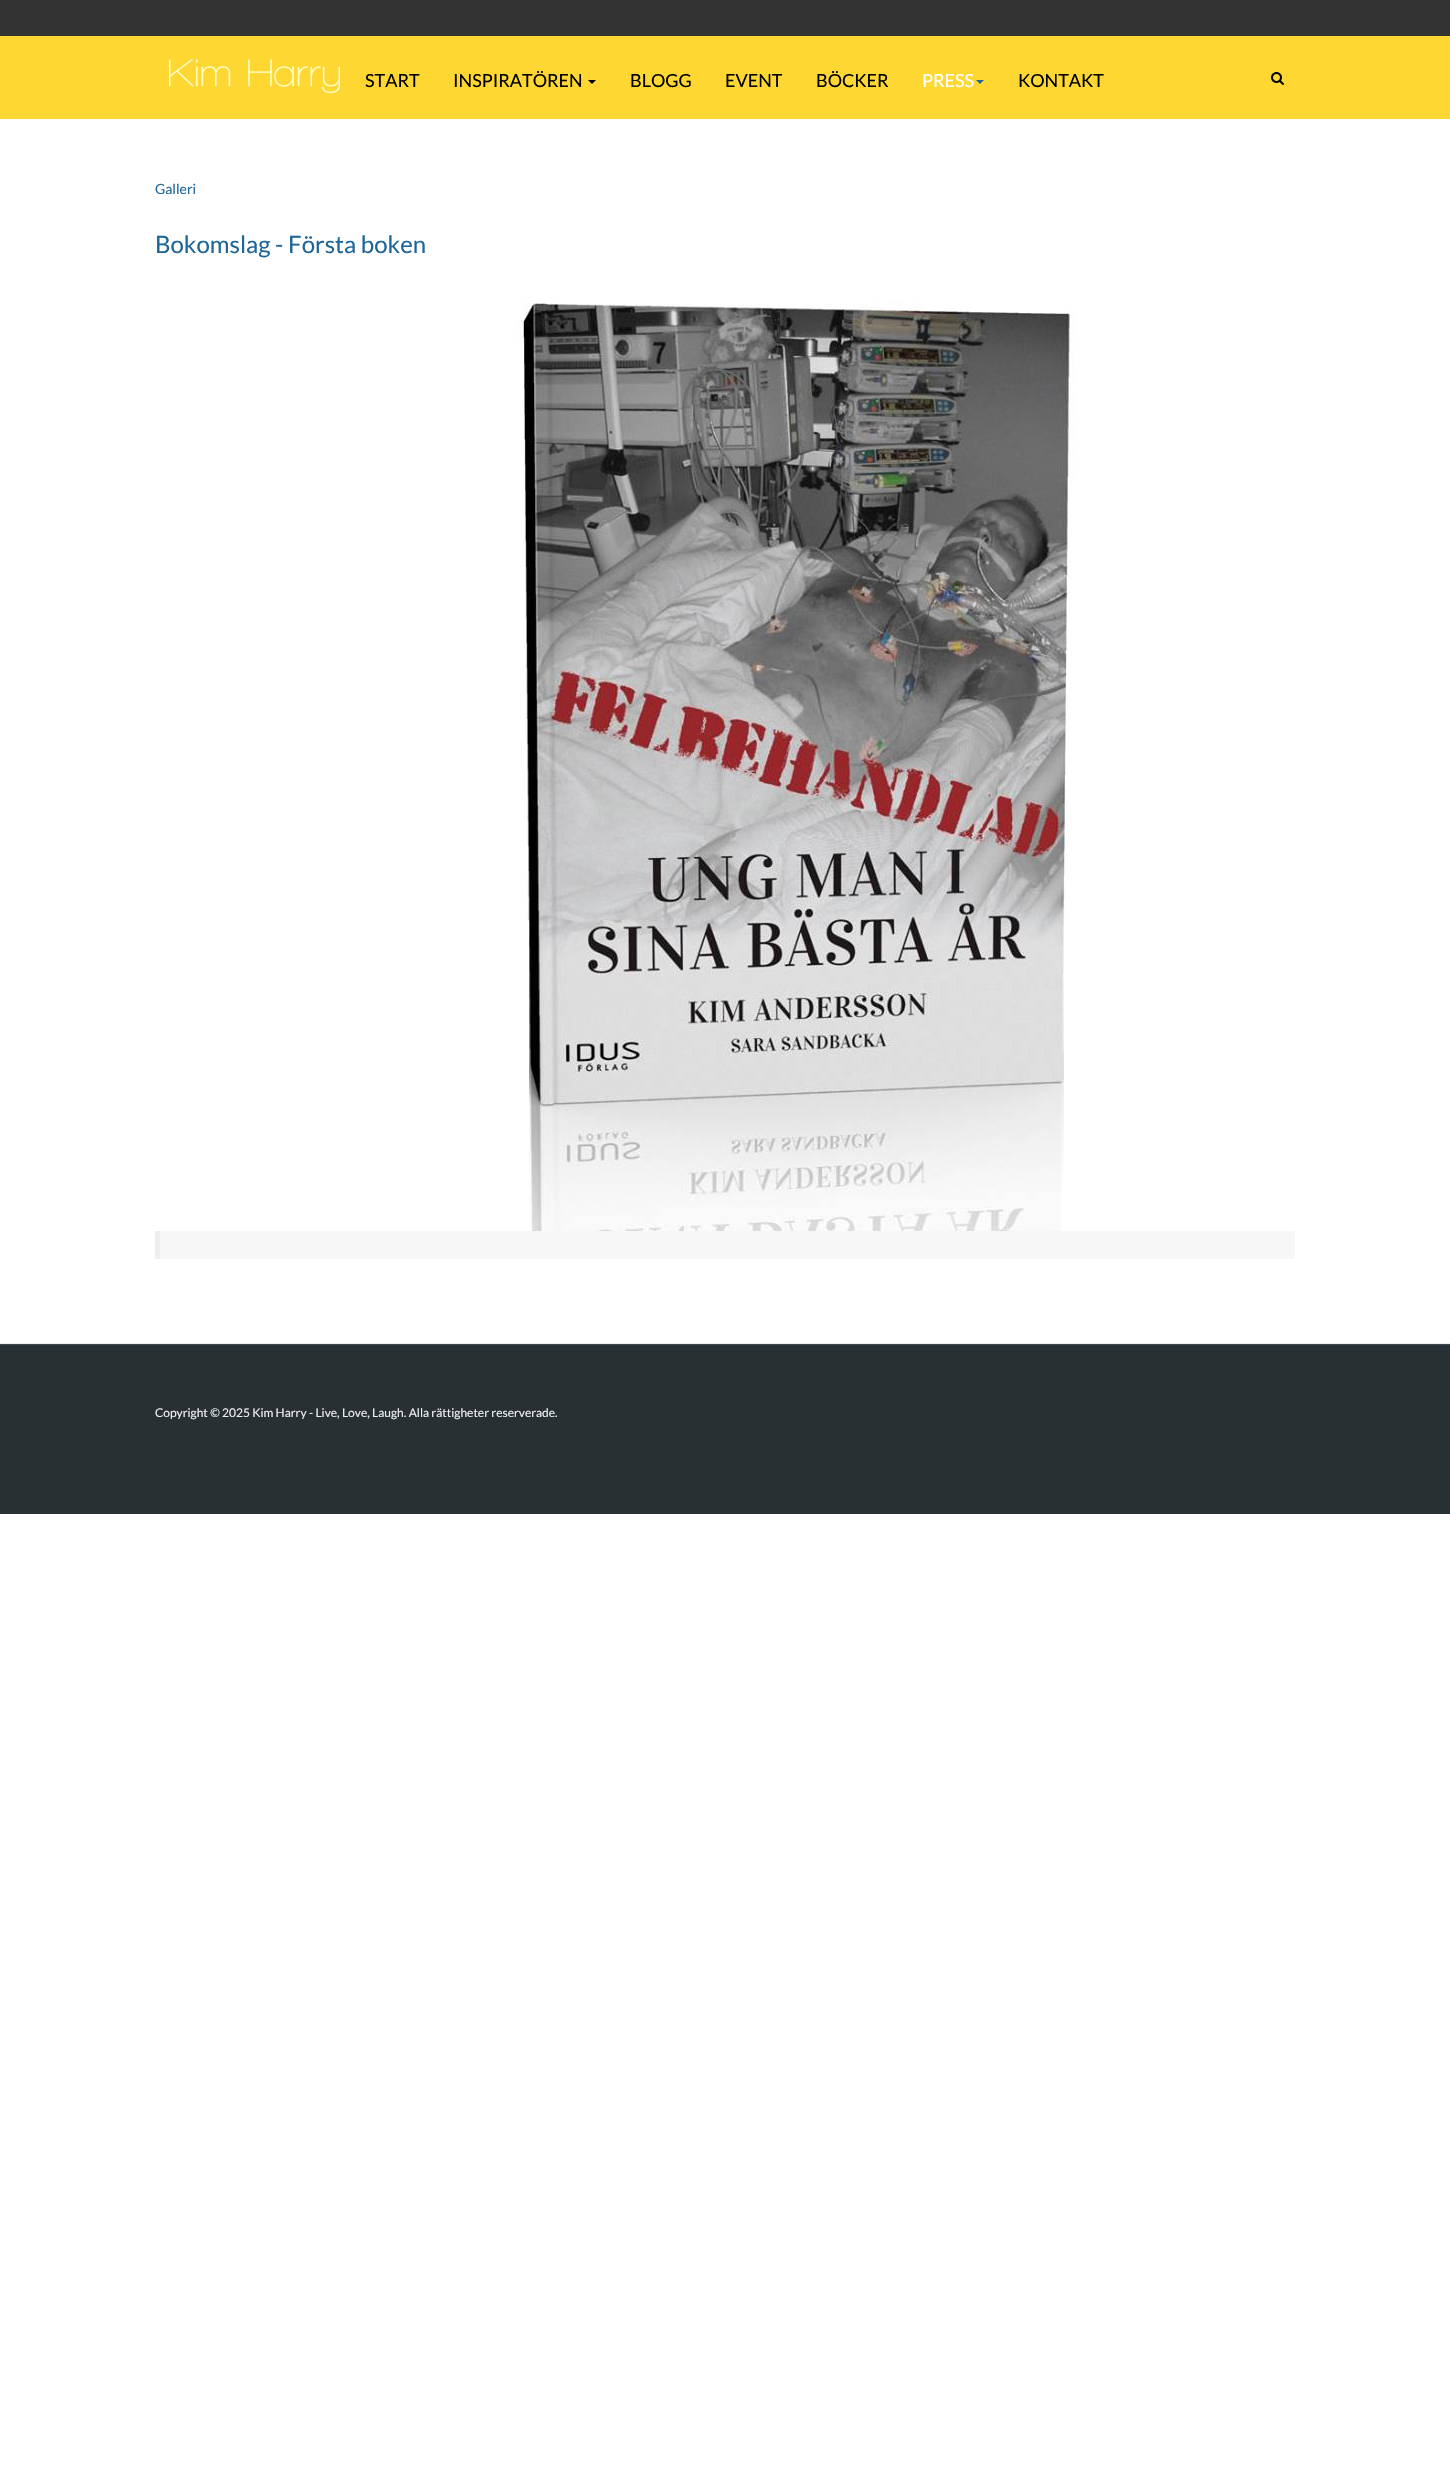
static SkFont makeFont(const char* family, int weight, float size, bool italic = false) {
  SkFontStyle style(weight, SkFontStyle::kNormal_Width,
    italic ? SkFontStyle::kItalic_Slant : SkFontStyle::kUpright_Slant);
  SkFont result(fontMgr->matchFamilyStyle(family, style), size);
  result.setSubpixel(true);
  return result;
}

static void text(SkCanvas* c, const char* s, float x, float y, const SkFont& font, SkColor color) {
  SkPaint ink(SkColor4f::FromColor(color));
  ink.setAntiAlias(true);
  c->drawString(s, x, y, font, ink);
}

static void box(SkCanvas* c, float l, float t, float r, float b, SkColor color) {
  SkPaint ink(SkColor4f::FromColor(color));
  ink.setAntiAlias(true);
  c->drawRect(SkRect::MakeLTRB(l, t, r, b), ink);
}

static void picture(SkCanvas* c, const char* path, float l, float t, float r, float b) {
  auto image = SkImages::DeferredFromEncodedData(SkData::MakeFromFileName(path));
  c->drawImageRect(image, SkRect::MakeLTRB(l, t, r, b), SkSamplingOptions());
}

void draw(SkCanvas* c) {
  SkPaint paint;
  paint.setAntiAlias(true);
  c->clear(0xffffffff);
  box(c, 0, 0, 1450, 36, 0xff333333);
  box(c, 0, 36, 1450, 119, 0xffffd733);
  picture(c, "img_01.png", 169, 59, 340, 93);
  SkFont face1 = makeFont("Lato", 400, 18);
  text(c, "START", 365, 87, face1, 0xff000000);
  text(c, "INSPIRATÖREN", 453, 87, face1, 0xff000000);
  paint.setColor(0xff000000);
  c->drawPath(SkPathBuilder().moveTo(588, 80).lineTo(596, 80).lineTo(592, 84).close().detach(), paint);
  text(c, "BLOGG", 630, 87, face1, 0xff000000);
  text(c, "EVENT", 725, 87, face1, 0xff000000);
  text(c, "BÖCKER", 816, 87, face1, 0xff000000);
  text(c, "PRESS", 922, 87, face1, 0xffffffff);
  paint.setColor(0xff1e6698);
  c->drawPath(SkPathBuilder().moveTo(976, 80).lineTo(984, 80).lineTo(980, 84).close().detach(), paint);
  text(c, "KONTAKT", 1018, 87, face1, 0xff000000);
  picture(c, "img_02.png", 1271, 72, 1284, 85);
  SkFont face2 = makeFont("Lato", 400, 14);
  text(c, "Galleri", 155, 194, face2, 0xff1e6698);
  SkFont face3 = makeFont("Lato", 400, 24);
  text(c, "Bokomslag - Första boken", 155, 253, face3, 0xff1e6698);
  picture(c, "img_03.png", 517, 303, 1076, 1231);
  box(c, 160, 1231, 1295, 1259, 0xfff7f7f7);
  box(c, 155, 1231, 160, 1259, 0xffeeeeee);
  box(c, 0, 1345, 1450, 1514, 0xff283034);
  box(c, 0, 1343, 1450, 1344, 0xffeeeeee);
  box(c, 0, 1344, 1450, 1345, 0xff3e4b51);
  SkFont face4 = makeFont("Lato", 400, 12);
  text(c, "Copyright © 2025 Kim Harry - Live, Love, Laugh. Alla rättigheter reserverade.", 155, 1417, face4, 0xffeeeeee);
}
